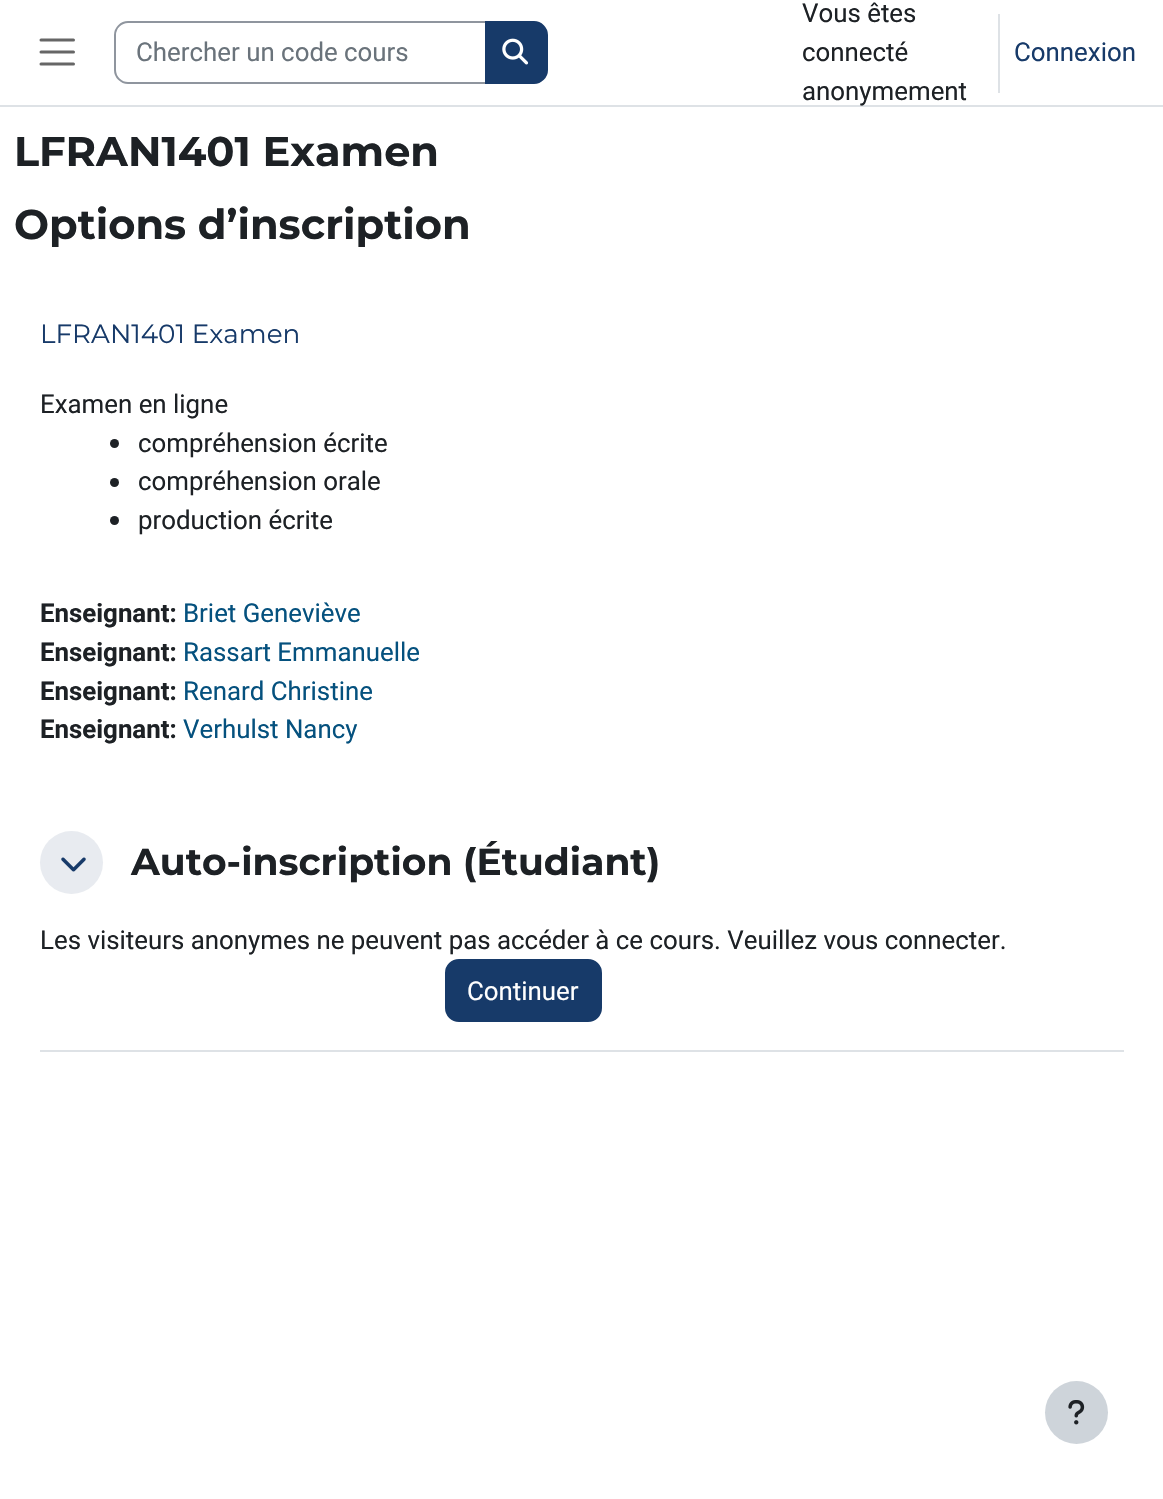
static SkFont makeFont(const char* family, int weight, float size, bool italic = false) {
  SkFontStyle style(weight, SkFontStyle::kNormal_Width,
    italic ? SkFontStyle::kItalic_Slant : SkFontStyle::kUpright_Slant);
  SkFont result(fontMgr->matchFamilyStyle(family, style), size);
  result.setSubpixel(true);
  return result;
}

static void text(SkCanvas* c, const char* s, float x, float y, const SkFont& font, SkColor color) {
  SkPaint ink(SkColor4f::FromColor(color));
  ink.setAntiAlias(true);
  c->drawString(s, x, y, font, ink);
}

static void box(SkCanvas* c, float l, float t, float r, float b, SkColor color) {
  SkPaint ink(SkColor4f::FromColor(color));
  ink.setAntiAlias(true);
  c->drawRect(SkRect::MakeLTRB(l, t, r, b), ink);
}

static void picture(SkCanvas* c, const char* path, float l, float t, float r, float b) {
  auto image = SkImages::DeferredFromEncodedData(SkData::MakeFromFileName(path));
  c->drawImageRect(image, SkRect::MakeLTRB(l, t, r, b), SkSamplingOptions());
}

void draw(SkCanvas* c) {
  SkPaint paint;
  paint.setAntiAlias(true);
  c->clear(0xffffffff);
  box(c, 0, 105, 1163, 107, 0xffdee2e6);
  paint.setStyle(SkPaint::kStroke_Style);
  paint.setStrokeWidth(3);
  paint.setStrokeCap(SkPaint::kRound_Cap);
  paint.setColor(0xff666666);
  c->drawPath(SkPathBuilder().moveTo(41, 40).lineTo(73.5f, 40).moveTo(41, 52).lineTo(73.5f, 52).moveTo(41, 64).lineTo(73.5f, 64).detach(), paint);
  paint.setStrokeWidth(2);
  paint.setStrokeCap(SkPaint::kButt_Cap);
  paint.setColor(0xff8f959e);
  c->drawPath(SkPathBuilder().moveTo(128, 22).lineTo(486, 22).lineTo(486, 83).lineTo(128, 83).cubicTo(121, 83, 115, 77, 115, 70).lineTo(115, 35).cubicTo(115, 28, 121, 22, 128, 22).close().detach(), paint);
  SkFont face1 = makeFont("Roboto", 400, 25.85f);
  text(c, "Chercher un code cours", 136, 61, face1, 0xff6a737b);
  paint.setStyle(SkPaint::kFill_Style);
  paint.setColor(0xff173a69);
  c->drawPath(SkPathBuilder().moveTo(486, 22).lineTo(534, 22).cubicTo(541, 22, 547, 28, 547, 35).lineTo(547, 70).cubicTo(547, 77, 541, 83, 534, 83).lineTo(486, 83).close().detach(), paint);
  paint.setStyle(SkPaint::kStroke_Style);
  c->drawPath(SkPathBuilder().moveTo(486, 22).lineTo(534, 22).cubicTo(541, 22, 547, 28, 547, 35).lineTo(547, 70).cubicTo(547, 77, 541, 83, 534, 83).lineTo(486, 83).close().detach(), paint);
  picture(c, "img_01.png", 502, 38, 529, 65);
  text(c, "Vous êtes", 802, 22, face1, 0xff1d2125);
  box(c, 998, 14, 1000, 93, 0xffdee2e6);
  text(c, "connecté", 802, 61, face1, 0xff1d2125);
  text(c, "Connexion", 1014, 61, face1, 0xff173a69);
  text(c, "anonymement", 802, 100, face1, 0xff1d2125);
  SkFont face2 = makeFont("Montserrat", 700, 41.5f);
  text(c, "LFRAN1401 Examen", 14, 166, face2, 0xff1d2125);
  text(c, "Options d’inscription", 14, 239, face2, 0xff1d2125);
  SkFont face3 = makeFont("Montserrat", 400, 26.25f);
  text(c, "LFRAN1401 Examen", 40, 343, face3, 0xff173a69);
  text(c, "Examen en ligne", 40, 413, face1, 0xff1d2125);
  paint.setStyle(SkPaint::kFill_Style);
  paint.setColor(0xff1d2125);
  c->drawCircle(114.5f, 443.5f, 4.5f, paint);
  text(c, "compréhension écrite", 138, 452, face1, 0xff1d2125);
  c->drawCircle(114.5f, 482.5f, 4.5f, paint);
  text(c, "compréhension orale", 138, 490, face1, 0xff1d2125);
  c->drawCircle(114.5f, 520.5f, 4.5f, paint);
  text(c, "production écrite", 138, 529, face1, 0xff1d2125);
  SkFont face4 = makeFont("Roboto", 700, 25.85f);
  text(c, "Enseignant:", 40, 622, face4, 0xff1d2125);
  text(c, "Briet Geneviève", 183, 622, face1, 0xff05517e);
  text(c, "Enseignant:", 40, 661, face4, 0xff1d2125);
  text(c, "Rassart Emmanuelle", 183, 661, face1, 0xff05517e);
  text(c, "Enseignant:", 40, 700, face4, 0xff1d2125);
  text(c, "Renard Christine", 183, 700, face1, 0xff05517e);
  text(c, "Enseignant:", 40, 738, face4, 0xff1d2125);
  text(c, "Verhulst Nancy", 183, 738, face1, 0xff05517e);
  box(c, 40, 1050, 1124, 1052, 0xffdee2e6);
  paint.setColor(0xffe8ebf0);
  c->drawCircle(71.5f, 862.5f, 31.5f, paint);
  picture(c, "img_02.png", 61, 857, 86, 872);
  SkFont face5 = makeFont("Montserrat", 700, 37.6f);
  text(c, "Auto-inscription (Étudiant)", 131, 875, face5, 0xff1d2125);
  text(c, "Les visiteurs anonymes ne peuvent pas accéder à ce cours. Veuillez vous connecter.", 40, 949, face1, 0xff1d2125);
  paint.setColor(0xff173a69);
  c->drawRoundRect(SkRect::MakeLTRB(446, 960, 601, 1021), 13, 13, paint);
  paint.setStyle(SkPaint::kStroke_Style);
  c->drawRoundRect(SkRect::MakeLTRB(446, 960, 601, 1021), 13, 13, paint);
  text(c, "Continuer", 467, 1000, face1, 0xffffffff);
  paint.setStyle(SkPaint::kFill_Style);
  paint.setColor(0xffced4da);
  c->drawCircle(1076.5f, 1412.5f, 31.5f, paint);
  picture(c, "img_03.png", 1068, 1400, 1085, 1425);
}
